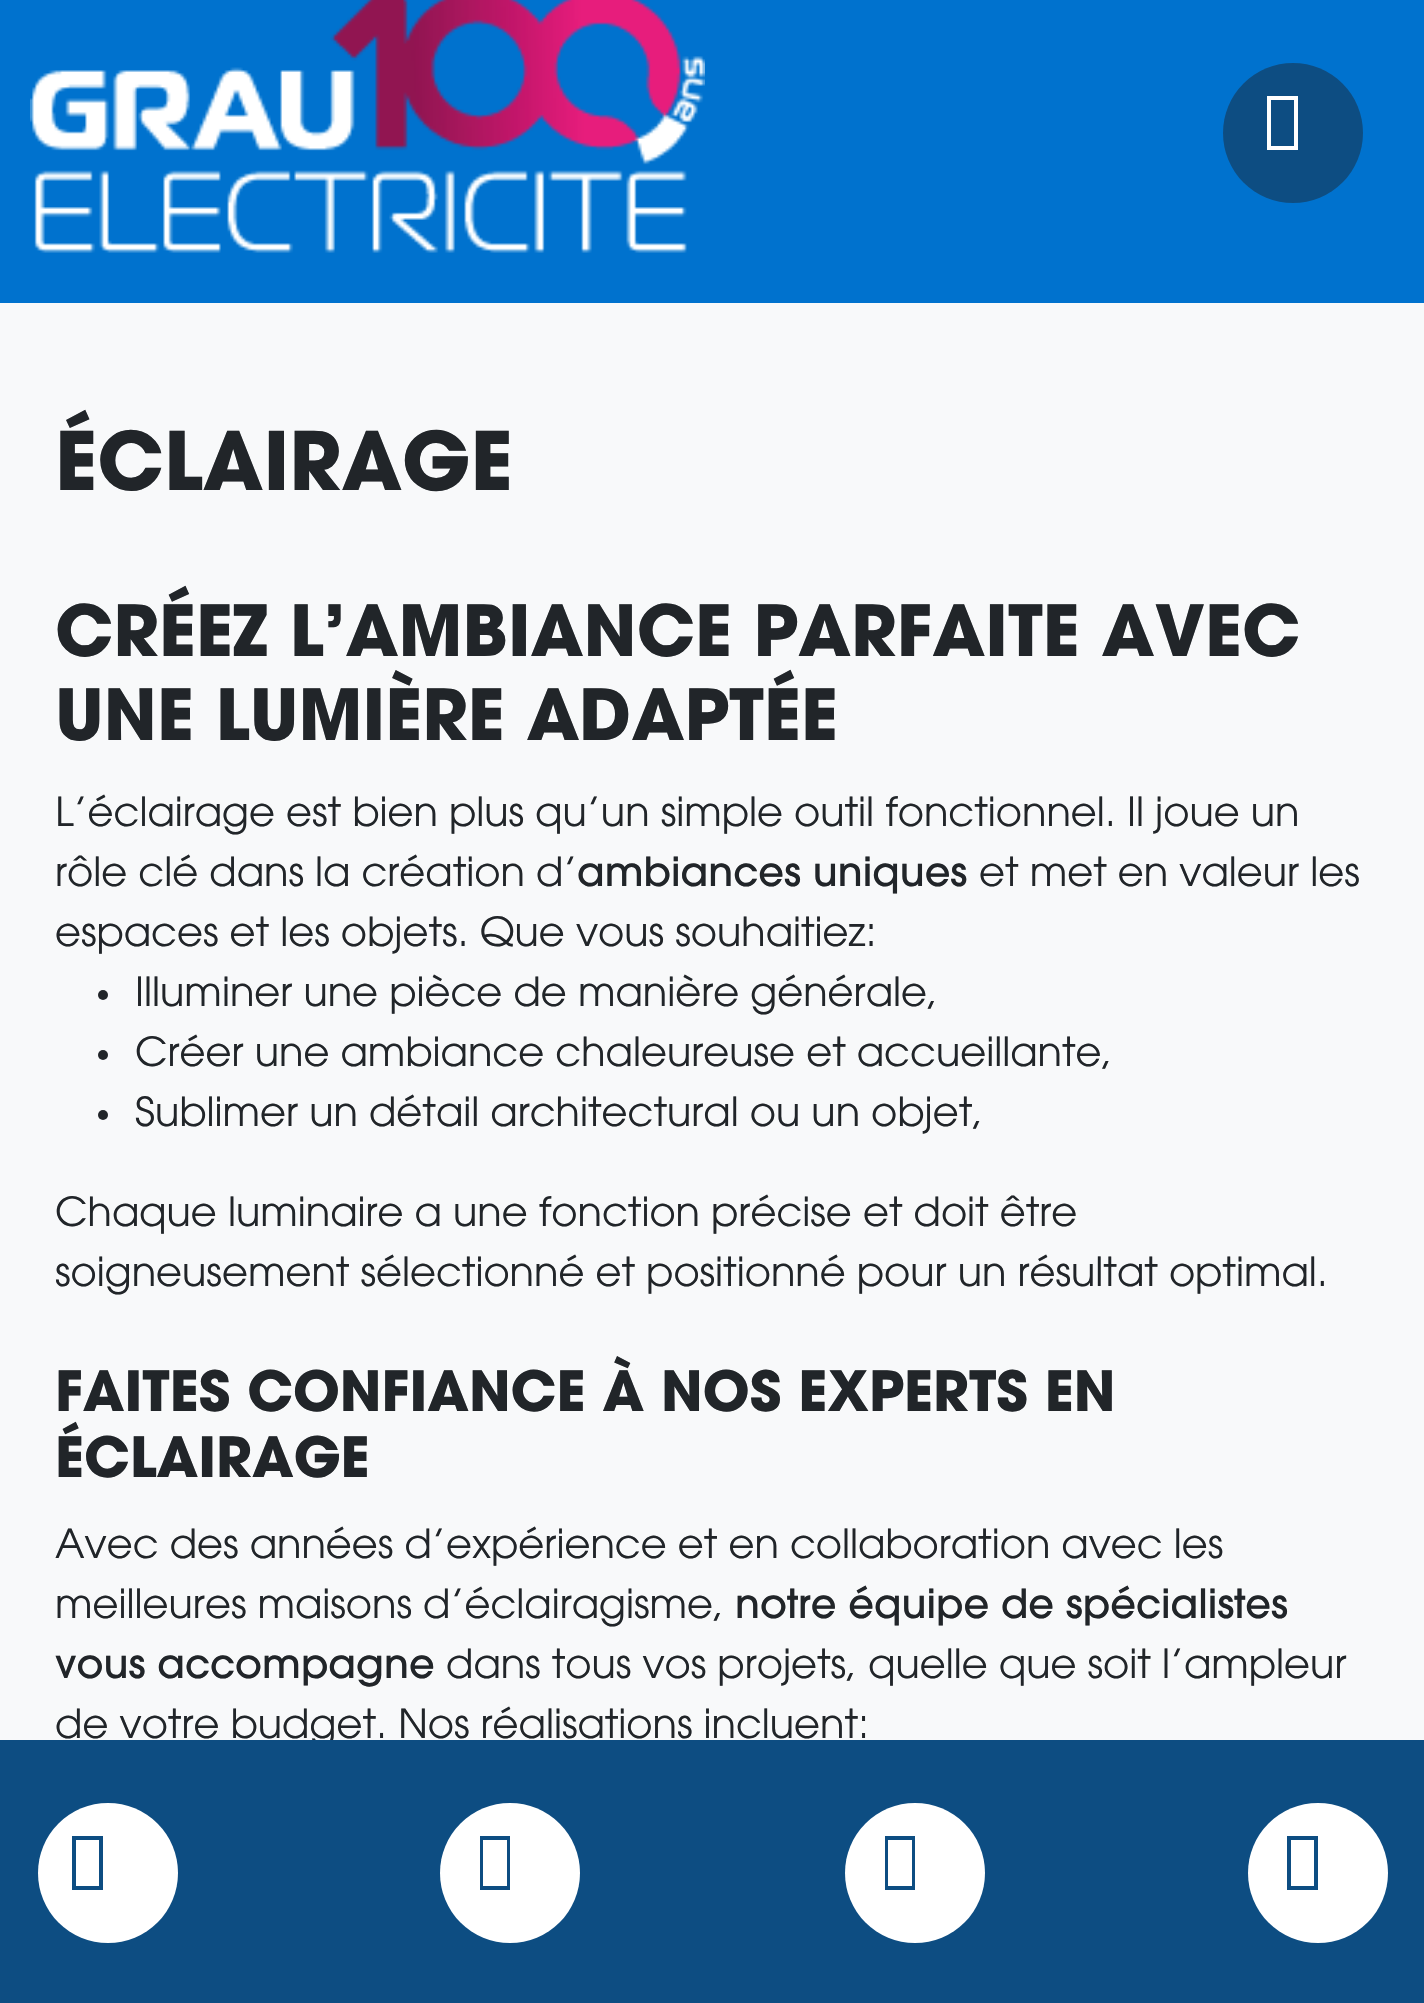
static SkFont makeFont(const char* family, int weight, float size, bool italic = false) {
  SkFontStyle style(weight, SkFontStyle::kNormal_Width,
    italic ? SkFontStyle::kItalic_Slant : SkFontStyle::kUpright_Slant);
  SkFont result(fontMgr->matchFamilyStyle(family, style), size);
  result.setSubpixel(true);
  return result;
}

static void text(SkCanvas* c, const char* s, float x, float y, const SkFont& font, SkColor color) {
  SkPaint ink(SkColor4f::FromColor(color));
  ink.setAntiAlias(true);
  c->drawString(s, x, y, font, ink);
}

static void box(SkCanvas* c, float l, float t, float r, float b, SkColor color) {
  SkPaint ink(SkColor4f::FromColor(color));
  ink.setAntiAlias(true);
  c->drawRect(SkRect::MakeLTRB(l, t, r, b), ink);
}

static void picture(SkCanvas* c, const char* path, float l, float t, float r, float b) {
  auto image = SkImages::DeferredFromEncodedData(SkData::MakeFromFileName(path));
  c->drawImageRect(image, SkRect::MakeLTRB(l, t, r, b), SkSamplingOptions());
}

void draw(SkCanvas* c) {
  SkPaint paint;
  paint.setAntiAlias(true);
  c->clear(0xfff8f9fa);
  box(c, 0, 0, 1424, 303, 0xff0072ce);
  picture(c, "img_01.png", 30, 0, 705, 253);
  paint.setColor(0xff0d4d82);
  c->drawCircle(1293, 133, 70, paint);
  paint.setColor(0xffffffff);
  c->drawPath(SkPathBuilder().moveTo(1267, 150).lineTo(1267, 96).lineTo(1298, 96).lineTo(1298, 150).close().moveTo(1271, 146).lineTo(1294, 146).lineTo(1294, 100).lineTo(1271, 100).close().detach(), paint);
  SkFont face1 = makeFont("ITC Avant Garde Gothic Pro", 700, 80);
  text(c, "ÉCLAIRAGE", 55, 490, face1, 0xff212529);
  SkFont face2 = makeFont("ITC Avant Garde Gothic Pro", 700, 70);
  text(c, "CRÉEZ L’AMBIANCE PARFAITE AVEC", 55, 656, face2, 0xff212529);
  text(c, "UNE LUMIÈRE ADAPTÉE", 55, 740, face2, 0xff212529);
  SkFont face3 = makeFont("ITC Avant Garde Gothic Pro", 300, 40);
  text(c, "L’éclairage est bien plus qu’un simple outil fonctionnel. Il joue un", 55, 826, face3, 0xff212529);
  text(c, "rôle clé dans la création d’", 55, 886, face3, 0xff212529);
  SkFont face4 = makeFont("ITC Avant Garde Gothic Pro", 500, 40);
  text(c, "ambiances uniques", 577, 886, face4, 0xff212529);
  text(c, "et met en valeur les", 979, 886, face3, 0xff212529);
  text(c, "espaces et les objets. Que vous souhaitiez:", 55, 946, face3, 0xff212529);
  paint.setColor(0xff212529);
  c->drawCircle(103, 995, 5, paint);
  text(c, "Illuminer une pièce de manière générale,", 135, 1006, face3, 0xff212529);
  c->drawCircle(103, 1055, 5, paint);
  text(c, "Créer une ambiance chaleureuse et accueillante,", 135, 1066, face3, 0xff212529);
  c->drawCircle(103, 1115, 5, paint);
  text(c, "Sublimer un détail architectural ou un objet,", 135, 1126, face3, 0xff212529);
  text(c, "Chaque luminaire a une fonction précise et doit être", 55, 1226, face3, 0xff212529);
  text(c, "soigneusement sélectionné et positionné pour un résultat optimal.", 55, 1286, face3, 0xff212529);
  SkFont face5 = makeFont("ITC Avant Garde Gothic Pro", 700, 55);
  text(c, "FAITES CONFIANCE À NOS EXPERTS EN", 55, 1411, face5, 0xff212529);
  text(c, "ÉCLAIRAGE", 55, 1477, face5, 0xff212529);
  text(c, "Avec des années d’expérience et en collaboration avec les", 55, 1558, face3, 0xff212529);
  text(c, "meilleures maisons d’éclairagisme,", 55, 1618, face3, 0xff212529);
  text(c, "notre équipe de spécialistes", 735, 1618, face4, 0xff212529);
  text(c, "vous accompagne", 55, 1678, face4, 0xff212529);
  text(c, "dans tous vos projets, quelle que soit l’ampleur", 446, 1678, face3, 0xff212529);
  text(c, "de votre budget. Nos réalisations incluent:", 55, 1738, face3, 0xff212529);
  box(c, 0, 1740, 1424, 2003, 0xff0d4d82);
  paint.setColor(0xffffffff);
  c->drawCircle(108, 1873, 70, paint);
  paint.setColor(0xff0d4d82);
  c->drawPath(SkPathBuilder().moveTo(72, 1890).lineTo(72, 1836).lineTo(103, 1836).lineTo(103, 1890).close().moveTo(76, 1886).lineTo(99, 1886).lineTo(99, 1840).lineTo(76, 1840).close().detach(), paint);
  paint.setColor(0xffffffff);
  c->drawCircle(510, 1873, 70, paint);
  paint.setColor(0xff0d4d82);
  c->drawPath(SkPathBuilder().moveTo(480, 1890).lineTo(480, 1836).lineTo(510, 1836).lineTo(510, 1890).close().moveTo(483, 1886).lineTo(507, 1886).lineTo(507, 1840).lineTo(483, 1840).close().detach(), paint);
  paint.setColor(0xffffffff);
  c->drawCircle(915, 1873, 70, paint);
  paint.setColor(0xff0d4d82);
  c->drawPath(SkPathBuilder().moveTo(885, 1890).lineTo(885, 1836).lineTo(915, 1836).lineTo(915, 1890).close().moveTo(888, 1886).lineTo(912, 1886).lineTo(912, 1840).lineTo(888, 1840).close().detach(), paint);
  paint.setColor(0xffffffff);
  c->drawCircle(1318, 1873, 70, paint);
  paint.setColor(0xff0d4d82);
  c->drawPath(SkPathBuilder().moveTo(1287, 1890).lineTo(1287, 1836).lineTo(1318, 1836).lineTo(1318, 1890).close().moveTo(1291, 1886).lineTo(1314, 1886).lineTo(1314, 1840).lineTo(1291, 1840).close().detach(), paint);
}
